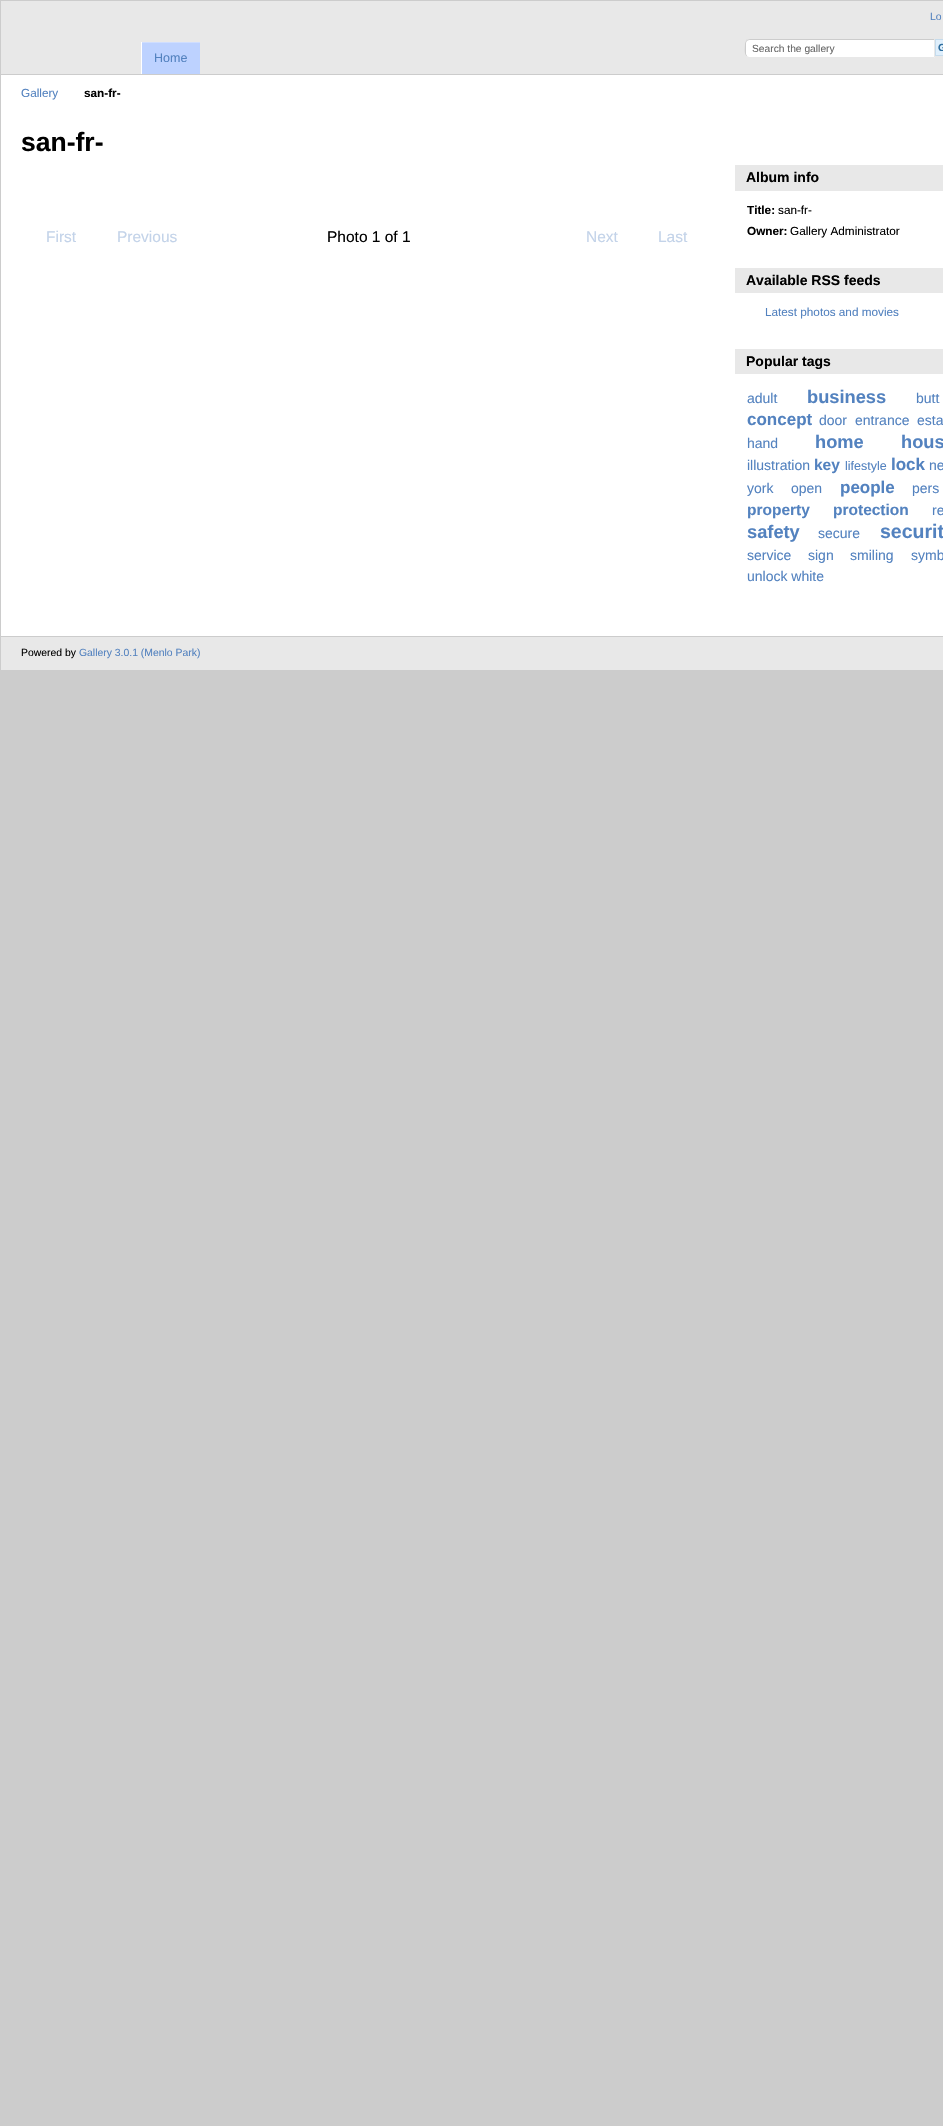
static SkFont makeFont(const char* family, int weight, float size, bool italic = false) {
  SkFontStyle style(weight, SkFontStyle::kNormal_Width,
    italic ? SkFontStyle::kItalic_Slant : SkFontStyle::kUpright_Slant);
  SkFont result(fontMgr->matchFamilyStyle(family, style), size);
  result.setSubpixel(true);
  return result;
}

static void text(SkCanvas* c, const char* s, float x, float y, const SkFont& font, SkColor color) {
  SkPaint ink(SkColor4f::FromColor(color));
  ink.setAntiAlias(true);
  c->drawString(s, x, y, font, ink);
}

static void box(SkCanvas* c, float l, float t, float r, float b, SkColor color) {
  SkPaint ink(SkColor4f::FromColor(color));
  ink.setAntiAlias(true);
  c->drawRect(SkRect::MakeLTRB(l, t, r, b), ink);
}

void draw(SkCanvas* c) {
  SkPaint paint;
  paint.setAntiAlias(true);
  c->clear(0xffcccccc);
  box(c, 1, 75, 943, 636, 0xffffffff);
  box(c, 1, 1, 943, 74, 0xffe8e8e8);
  SkFont face1 = makeFont("Liberation Sans", 400, 10.4f);
  text(c, "Lo", 930, 20, face1, 0xff5382bf);
  paint.setColor(0xffffffff);
  c->drawPath(SkPathBuilder().moveTo(750, 39).lineTo(935, 39).lineTo(935, 58).lineTo(750, 58).cubicTo(747, 58, 745, 56, 745, 53).lineTo(745, 44).cubicTo(745, 41, 747, 39, 750, 39).close().detach(), paint);
  paint.setColor(0xffcccccc);
  c->drawPath(SkPathBuilder().moveTo(750, 39).cubicTo(748, 39, 747, 40, 746, 40).lineTo(747, 41).cubicTo(748, 40, 749, 40, 750, 40).lineTo(934, 40).lineTo(935, 39).close().detach(), paint);
  paint.setColor(0xffe8e8e8);
  c->drawPath(SkPathBuilder().moveTo(935, 39).lineTo(934, 40).lineTo(934, 57).lineTo(935, 58).close().detach(), paint);
  c->drawPath(SkPathBuilder().moveTo(935, 58).lineTo(934, 57).lineTo(749, 57).lineTo(747, 56).lineTo(746, 57).cubicTo(747, 58, 748, 58, 750, 58).close().detach(), paint);
  paint.setColor(0xffcccccc);
  c->drawPath(SkPathBuilder().moveTo(745, 44).cubicTo(745, 47, 744, 54.5f, 746.5f, 56.5f).lineTo(747, 56).lineTo(746, 54).lineTo(746, 43.5f).cubicTo(746, 42.5f, 746.5f, 41.5f, 747, 41).lineTo(746.5f, 40.5f).cubicTo(745.5f, 41, 745, 42.5f, 745, 44).close().detach(), paint);
  SkFont face2 = makeFont("Liberation Sans", 400, 10.25f);
  text(c, "Search the gallery", 752, 52, face2, 0xff666666);
  paint.setColor(0xffdfeffc);
  c->drawRect(SkRect::MakeLTRB(935.5f, 39.5f, 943.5f, 55.5f), paint);
  paint.setStyle(SkPaint::kStroke_Style);
  paint.setStrokeWidth(1);
  paint.setColor(0xffc5dbec);
  c->drawRect(SkRect::MakeLTRB(935.5f, 39.5f, 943.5f, 55.5f), paint);
  SkFont face3 = makeFont("Liberation Sans", 700, 10.25f);
  text(c, "G", 938, 51, face3, 0xff2e6e9e);
  box(c, 142, 43, 200, 74, 0xffbdd2ff);
  box(c, 141, 42, 200, 43, 0xffcfdeff);
  box(c, 141, 42, 142, 74, 0xffffffff);
  SkFont face4 = makeFont("Liberation Sans", 400, 12.5f);
  text(c, "Home", 154, 62, face4, 0xff5382bf);
  SkFont face5 = makeFont("Liberation Sans", 400, 11.75f);
  text(c, "Gallery", 21, 97, face5, 0xff5382bf);
  SkFont face6 = makeFont("Liberation Sans", 700, 11.75f);
  text(c, "san-fr-", 84, 97, face6, 0xff000000);
  SkFont face7 = makeFont("Liberation Sans", 700, 26.5f);
  text(c, "san-fr-", 21, 151, face7, 0xff000000);
  SkFont face8 = makeFont("Liberation Sans", 400, 15.5f);
  text(c, "First", 46, 242, face8, 0xffc3d3e9);
  text(c, "Previous", 117, 242, face8, 0xffc3d3e9);
  text(c, "Photo 1 of 1", 327, 242, face8, 0xff000000);
  text(c, "Next", 586, 242, face8, 0xffc3d3e9);
  text(c, "Last", 658, 242, face8, 0xffc3d3e9);
  box(c, 735, 165, 943, 191, 0xffe8e8e8);
  SkFont face9 = makeFont("Liberation Sans", 700, 14);
  text(c, "Album info", 746, 182, face9, 0xff000000);
  text(c, "Title:", 747, 214, face6, 0xff000000);
  text(c, "san-fr-", 778, 214, face5, 0xff000000);
  text(c, "Owner:", 747, 235, face6, 0xff000000);
  text(c, "Gallery Administrator", 790, 235, face5, 0xff000000);
  box(c, 735, 268, 943, 293, 0xffe8e8e8);
  text(c, "Available RSS feeds", 746, 285, face9, 0xff000000);
  text(c, "Latest photos and movies", 765, 316, face5, 0xff5382bf);
  box(c, 735, 349, 943, 374, 0xffe8e8e8);
  text(c, "Popular tags", 746, 366, face9, 0xff000000);
  SkFont face10 = makeFont("Liberation Sans", 400, 14);
  text(c, "adult", 747, 403, face10, 0xff5382bf);
  SkFont face11 = makeFont("Liberation Sans", 700, 18.25f);
  text(c, "business", 807, 403, face11, 0xff5382bf);
  text(c, "butt", 916, 403, face10, 0xff5382bf);
  SkFont face12 = makeFont("Liberation Sans", 700, 17);
  text(c, "concept", 747, 425, face12, 0xff5382bf);
  text(c, "door", 819, 425, face10, 0xff5382bf);
  text(c, "entrance", 855, 425, face10, 0xff5382bf);
  text(c, "esta", 917, 425, face10, 0xff5382bf);
  text(c, "hand", 747, 448, face10, 0xff5382bf);
  text(c, "home", 815, 448, face11, 0xff5382bf);
  text(c, "hous", 901, 448, face11, 0xff5382bf);
  text(c, "illustration", 747, 470, face10, 0xff5382bf);
  SkFont face13 = makeFont("Liberation Sans", 700, 15.5f);
  text(c, "key", 814, 470, face13, 0xff5382bf);
  text(c, "lifestyle", 845, 470, face4, 0xff5382bf);
  text(c, "lock", 891, 470, face12, 0xff5382bf);
  text(c, "ne", 929, 470, face10, 0xff5382bf);
  text(c, "york", 747, 493, face10, 0xff5382bf);
  text(c, "open", 791, 493, face10, 0xff5382bf);
  text(c, "people", 840, 493, face12, 0xff5382bf);
  text(c, "pers", 912, 493, face10, 0xff5382bf);
  text(c, "property", 747, 515, face13, 0xff5382bf);
  text(c, "protection", 833, 515, face13, 0xff5382bf);
  text(c, "re", 932, 515, face10, 0xff5382bf);
  text(c, "safety", 747, 538, face11, 0xff5382bf);
  text(c, "secure", 818, 538, face10, 0xff5382bf);
  SkFont face14 = makeFont("Liberation Sans", 700, 19.5f);
  text(c, "securit", 880, 538, face14, 0xff5382bf);
  text(c, "service", 747, 560, face10, 0xff5382bf);
  text(c, "sign", 808, 560, face10, 0xff5382bf);
  text(c, "smiling", 850, 560, face10, 0xff5382bf);
  text(c, "symb", 911, 560, face10, 0xff5382bf);
  text(c, "unlock white", 747, 581, face10, 0xff5382bf);
  box(c, 1, 637, 943, 670, 0xffe8e8e8);
  text(c, "Powered by", 21, 656, face1, 0xff000000);
  text(c, "Gallery 3.0.1 (Menlo Park)", 79, 656, face1, 0xff5382bf);
}
